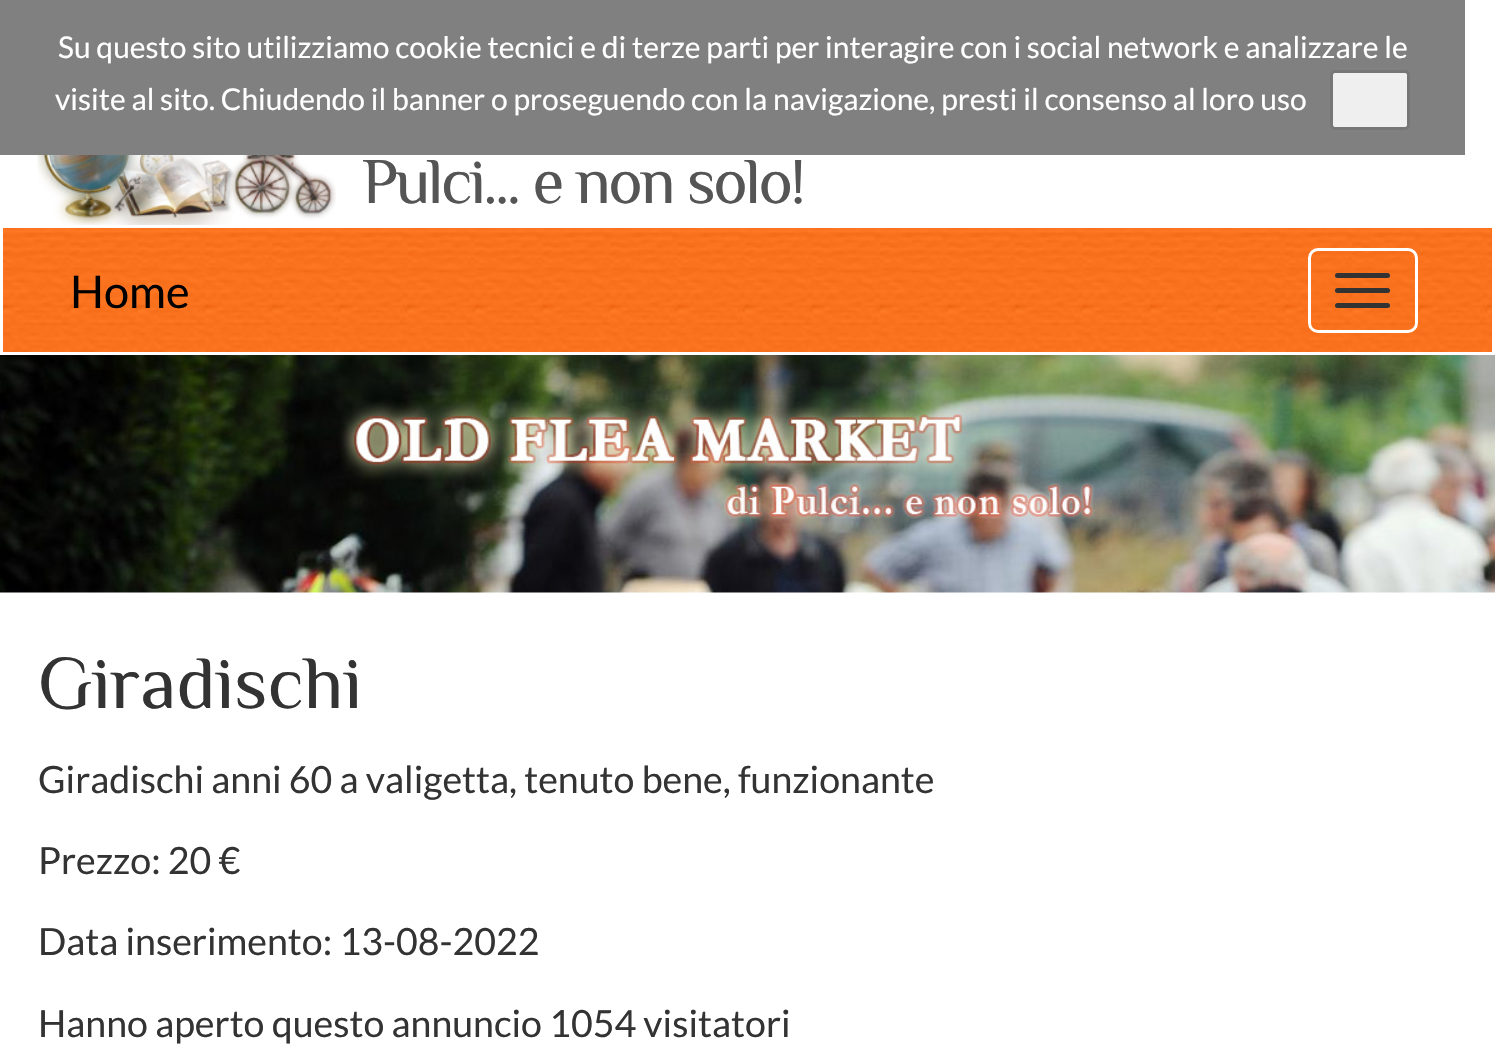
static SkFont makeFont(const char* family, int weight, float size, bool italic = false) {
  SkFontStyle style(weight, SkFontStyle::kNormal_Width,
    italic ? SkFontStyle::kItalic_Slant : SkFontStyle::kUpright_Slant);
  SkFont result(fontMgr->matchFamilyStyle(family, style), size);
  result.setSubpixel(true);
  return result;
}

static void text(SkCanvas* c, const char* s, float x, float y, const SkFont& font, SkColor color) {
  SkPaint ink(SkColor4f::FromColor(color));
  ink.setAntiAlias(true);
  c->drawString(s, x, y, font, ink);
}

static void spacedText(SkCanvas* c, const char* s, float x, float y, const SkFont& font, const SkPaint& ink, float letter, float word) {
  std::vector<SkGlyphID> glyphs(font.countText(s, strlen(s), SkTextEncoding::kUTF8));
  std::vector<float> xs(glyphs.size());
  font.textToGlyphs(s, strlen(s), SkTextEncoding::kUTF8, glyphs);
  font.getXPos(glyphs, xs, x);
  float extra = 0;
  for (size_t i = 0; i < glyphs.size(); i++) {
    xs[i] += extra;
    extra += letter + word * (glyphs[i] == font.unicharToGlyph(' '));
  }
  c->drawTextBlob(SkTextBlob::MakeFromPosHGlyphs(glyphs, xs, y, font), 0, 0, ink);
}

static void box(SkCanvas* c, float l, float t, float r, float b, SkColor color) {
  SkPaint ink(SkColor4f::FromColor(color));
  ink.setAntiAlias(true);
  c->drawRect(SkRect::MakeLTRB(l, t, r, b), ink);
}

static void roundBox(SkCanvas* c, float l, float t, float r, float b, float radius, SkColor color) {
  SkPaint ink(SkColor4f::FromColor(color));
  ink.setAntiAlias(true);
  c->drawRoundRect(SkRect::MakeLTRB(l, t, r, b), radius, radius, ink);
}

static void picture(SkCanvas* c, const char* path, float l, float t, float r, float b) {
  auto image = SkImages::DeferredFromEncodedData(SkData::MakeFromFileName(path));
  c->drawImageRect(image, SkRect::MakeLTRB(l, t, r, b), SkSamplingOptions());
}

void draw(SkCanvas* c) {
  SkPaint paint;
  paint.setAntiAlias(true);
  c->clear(0xffffffff);
  box(c, 0, 0, 1465, 155, 0xff808080);
  SkFont face1 = makeFont("Lato", 400, 30);
  text(c, "Su questo sito utilizziamo cookie tecnici e di terze parti per interagire con i social network e analizzare le", 58, 58, face1, 0xffffffff);
  text(c, "visite al sito. Chiudendo il banner o proseguendo con la navigazione, presti il consenso al loro uso", 55, 110, face1, 0xffffffff);
  paint.setColor(0xffefefef);
  c->drawRoundRect(SkRect::MakeLTRB(1331.5f, 71.5f, 1408.5f, 128.5f), 3.5f, 3.5f, paint);
  paint.setStyle(SkPaint::kStroke_Style);
  paint.setStrokeWidth(3);
  paint.setColor(0xff767676);
  c->drawRoundRect(SkRect::MakeLTRB(1331.5f, 71.5f, 1408.5f, 128.5f), 3.5f, 3.5f, paint);
  picture(c, "img_01.png", 37, 155, 336, 225);
  SkFont face2 = makeFont("Philosopher", 400, 65);
  paint.setStyle(SkPaint::kFill_Style);
  paint.setColor(0xff555555);
  spacedText(c, "Pulci... e non solo!", 362, 203, face2, paint, -2.5f, 0);
  picture(c, "img_02.png", 3, 228, 1492, 352);
  SkFont face3 = makeFont("Lato", 400, 45);
  text(c, "Home", 70, 308, face3, 0xff000000);
  paint.setStyle(SkPaint::kStroke_Style);
  paint.setColor(0xffffffff);
  c->drawRoundRect(SkRect::MakeLTRB(1309.5f, 249.5f, 1416.5f, 331.5f), 8.5f, 8.5f, paint);
  roundBox(c, 1335, 273, 1390, 278, 2.5f, 0xff333333);
  roundBox(c, 1335, 288, 1390, 293, 2.5f, 0xff333333);
  roundBox(c, 1335, 303, 1390, 308, 2.5f, 0xff333333);
  picture(c, "img_03.png", 0, 355, 1495, 593);
  SkFont face4 = makeFont("Philosopher", 400, 75);
  text(c, "Giradischi", 38, 708, face4, 0xff333333);
  SkFont face5 = makeFont("Lato", 400, 37.5f);
  text(c, "Giradischi anni 60 a valigetta, tenuto bene, funzionante", 38, 793, face5, 0xff333333);
  text(c, "Prezzo: 20 €", 38, 874, face5, 0xff333333);
  text(c, "Data inserimento: 13-08-2022", 38, 955, face5, 0xff333333);
  text(c, "Hanno aperto questo annuncio 1054 visitatori", 38, 1037, face5, 0xff333333);
}
